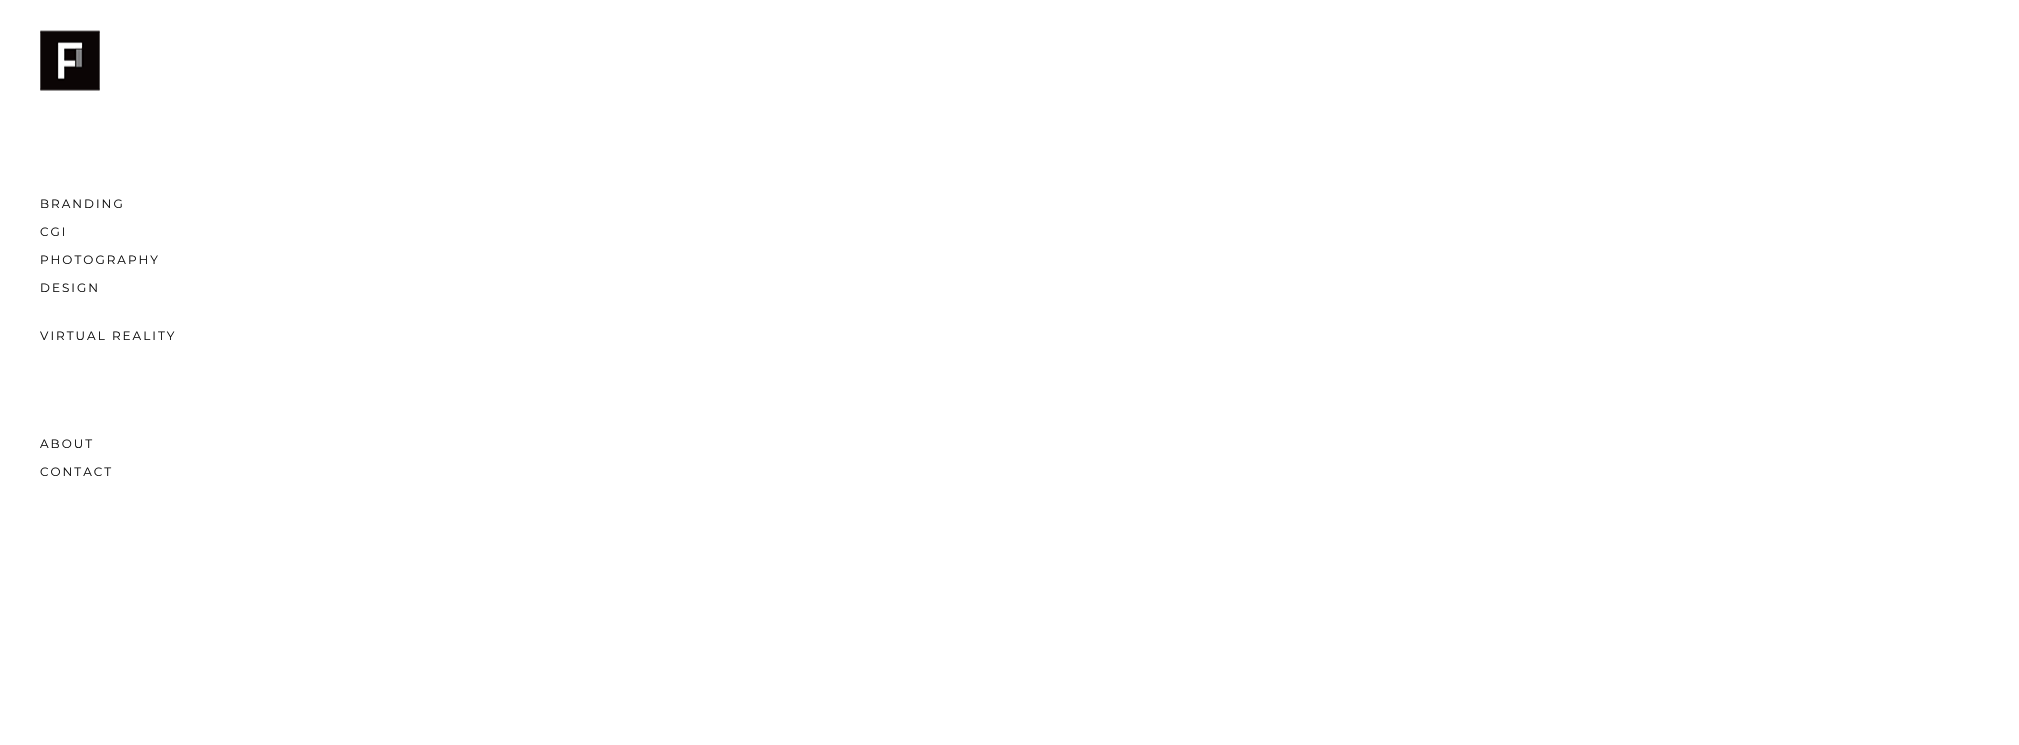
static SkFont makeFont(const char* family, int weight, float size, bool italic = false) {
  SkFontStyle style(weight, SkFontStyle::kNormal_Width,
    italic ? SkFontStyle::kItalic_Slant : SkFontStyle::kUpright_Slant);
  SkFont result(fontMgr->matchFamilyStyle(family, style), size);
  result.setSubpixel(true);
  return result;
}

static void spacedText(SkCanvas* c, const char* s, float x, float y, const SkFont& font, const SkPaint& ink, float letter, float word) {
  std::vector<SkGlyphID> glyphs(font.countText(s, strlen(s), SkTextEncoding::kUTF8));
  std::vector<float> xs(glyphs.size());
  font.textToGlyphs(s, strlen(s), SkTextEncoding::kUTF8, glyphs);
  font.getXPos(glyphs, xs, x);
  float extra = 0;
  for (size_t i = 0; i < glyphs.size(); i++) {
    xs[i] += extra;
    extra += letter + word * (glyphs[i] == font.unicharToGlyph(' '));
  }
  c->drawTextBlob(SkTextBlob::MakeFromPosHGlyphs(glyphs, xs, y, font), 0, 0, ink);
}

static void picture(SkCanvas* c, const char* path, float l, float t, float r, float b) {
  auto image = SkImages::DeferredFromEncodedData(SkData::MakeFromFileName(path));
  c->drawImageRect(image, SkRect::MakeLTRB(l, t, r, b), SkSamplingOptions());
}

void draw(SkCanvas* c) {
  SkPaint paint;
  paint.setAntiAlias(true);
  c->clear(0xffffffff);
  picture(c, "img_01.png", 40, 30, 100, 91);
  SkFont face1 = makeFont("Montserrat", 400, 12);
  paint.setColor(0xff121212);
  spacedText(c, "BRANDING", 40, 208, face1, paint, 2, 0);
  spacedText(c, "CGI", 40, 236, face1, paint, 2, 0);
  spacedText(c, "PHOTOGRAPHY", 40, 264, face1, paint, 2, 0);
  spacedText(c, "DESIGN", 40, 292, face1, paint, 2, 0);
  spacedText(c, "VIRTUAL REALITY", 40, 340, face1, paint, 2, 0);
  spacedText(c, "ABOUT", 40, 448, face1, paint, 2, 0);
  spacedText(c, "CONTACT", 40, 476, face1, paint, 2, 0);
}
